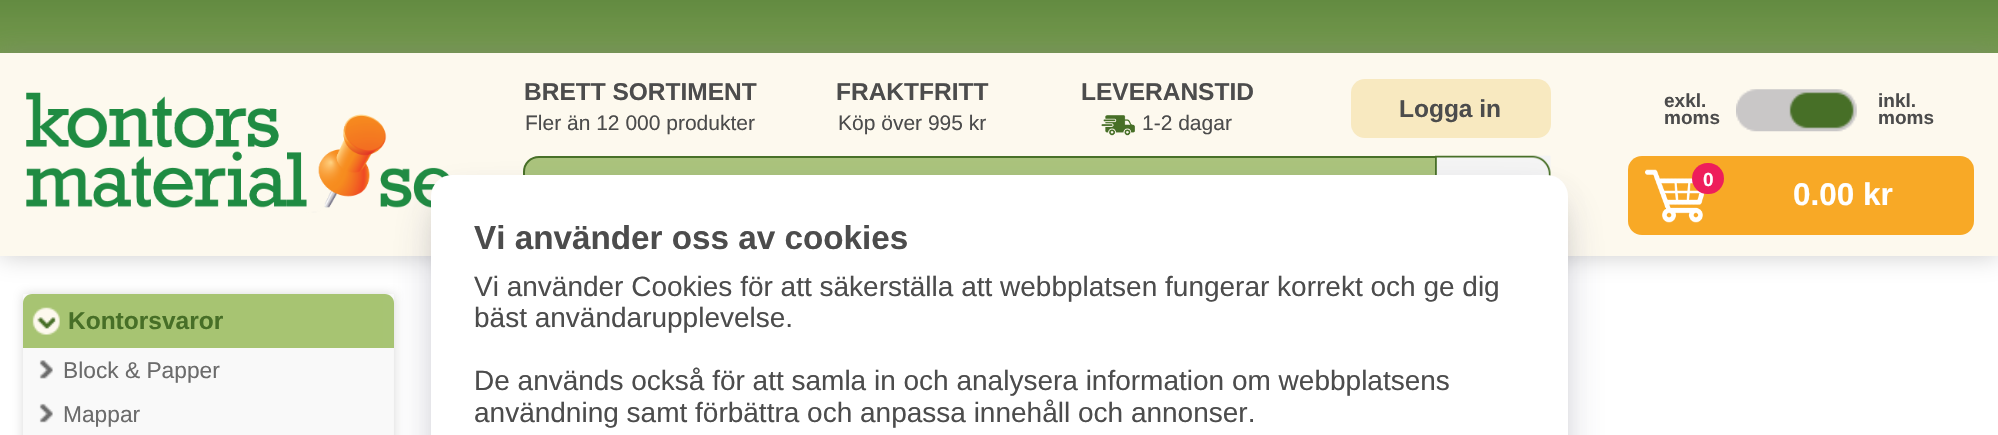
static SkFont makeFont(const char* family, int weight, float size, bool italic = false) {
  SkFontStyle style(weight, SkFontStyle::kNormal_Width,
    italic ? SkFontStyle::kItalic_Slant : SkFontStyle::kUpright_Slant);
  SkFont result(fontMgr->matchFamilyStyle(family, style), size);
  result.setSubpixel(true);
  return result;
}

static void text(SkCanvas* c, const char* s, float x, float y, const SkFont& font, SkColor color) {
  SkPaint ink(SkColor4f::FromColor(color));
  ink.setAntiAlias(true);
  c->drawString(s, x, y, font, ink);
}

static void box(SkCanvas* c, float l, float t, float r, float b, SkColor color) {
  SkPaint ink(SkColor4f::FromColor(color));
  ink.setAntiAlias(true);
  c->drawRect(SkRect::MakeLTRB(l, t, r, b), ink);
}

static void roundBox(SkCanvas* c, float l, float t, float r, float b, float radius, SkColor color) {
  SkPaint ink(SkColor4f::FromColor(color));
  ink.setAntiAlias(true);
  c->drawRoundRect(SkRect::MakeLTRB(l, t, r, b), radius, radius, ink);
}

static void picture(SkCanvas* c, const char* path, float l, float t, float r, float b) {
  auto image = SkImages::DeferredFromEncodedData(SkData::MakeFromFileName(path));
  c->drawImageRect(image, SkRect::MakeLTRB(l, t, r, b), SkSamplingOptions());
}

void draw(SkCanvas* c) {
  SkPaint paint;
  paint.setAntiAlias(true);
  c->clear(0xffffffff);
  {
    const SkColor colors[] = {0xff638b41, 0xffa6c36f, 0xffa6c36f};
    const float stops[] = {0, 0.51f, 1};
    const SkPoint ends[] = {{999, 0}, {999, 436}};
    paint.setShader(SkGradientShader::MakeLinear(ends, colors, stops, 3, SkTileMode::kClamp));
    paint.setAlpha(255);
  }
  c->drawRect(SkRect::MakeLTRB(0, 0, 1998, 53), paint);
  paint.setShader(nullptr);
  paint.setColor(0x66808080);
  paint.setMaskFilter(SkMaskFilter::MakeBlur(kNormal_SkBlurStyle, 12));
  c->drawRect(SkRect::MakeLTRB(0, 53, 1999, 256), paint);
  paint.setMaskFilter(nullptr);
  box(c, 0, 53, 1998, 256, 0xfffdf9ee);
  picture(c, "img_01.png", 26, 92, 450, 213);
  SkFont face1 = makeFont("Liberation Sans", 700, 24.5f);
  text(c, "BRETT SORTIMENT", 524, 100, face1, 0xff4c4c4c);
  SkFont face2 = makeFont("Liberation Sans", 400, 21);
  text(c, "Fler än 12 000 produkter", 525, 130, face2, 0xff4c4c4c);
  text(c, "FRAKTFRITT", 836, 100, face1, 0xff4c4c4c);
  text(c, "Köp över 995 kr", 838, 130, face2, 0xff4c4c4c);
  text(c, "LEVERANSTID", 1081, 100, face1, 0xff4c4c4c);
  picture(c, "img_02.png", 1101, 115, 1135, 136);
  text(c, "1-2 dagar", 1142, 130, face2, 0xff4c4c4c);
  roundBox(c, 1351, 79, 1551, 138, 14, 0xfff8e9c0);
  text(c, "Logga in", 1399, 117, face1, 0xff4c4c4c);
  SkFont face3 = makeFont("Liberation Sans", 700, 19);
  text(c, "exkl.", 1664, 107, face3, 0xff4c4c4c);
  text(c, "moms", 1664, 124, face3, 0xff4c4c4c);
  picture(c, "img_03.png", 1736, 89, 1857, 132);
  text(c, "inkl.", 1878, 107, face3, 0xff4c4c4c);
  text(c, "moms", 1878, 124, face3, 0xff4c4c4c);
  paint.setColor(0xffaac37c);
  c->drawPath(SkPathBuilder().moveTo(539, 157).lineTo(1539, 157).lineTo(1539, 234).lineTo(539, 234).cubicTo(530.5f, 234, 524, 227.5f, 524, 219).lineTo(524, 172).cubicTo(524, 163.5f, 530.5f, 157, 539, 157).close().detach(), paint);
  paint.setStyle(SkPaint::kStroke_Style);
  paint.setStrokeWidth(2);
  paint.setColor(0xff476f27);
  c->drawPath(SkPathBuilder().moveTo(539, 157).lineTo(1539, 157).lineTo(1539, 234).lineTo(539, 234).cubicTo(530.5f, 234, 524, 227.5f, 524, 219).lineTo(524, 172).cubicTo(524, 163.5f, 530.5f, 157, 539, 157).close().detach(), paint);
  picture(c, "img_04.png", 1435, 155, 1551, 176);
  roundBox(c, 1628, 156, 1974, 235, 14, 0xfff8a926);
  picture(c, "img_05.png", 1645, 169, 1705, 223);
  roundBox(c, 1692, 163, 1724, 194, 15.5f, 0xffee1e5b);
  text(c, "0", 1703, 186, face3, 0xffffffff);
  SkFont face4 = makeFont("Liberation Sans", 700, 31.5f);
  text(c, "0.00 kr", 1793, 205, face4, 0xffffffff);
  paint.setStyle(SkPaint::kFill_Style);
  paint.setColor(0x4d808080);
  paint.setMaskFilter(SkMaskFilter::MakeBlur(kNormal_SkBlurStyle, 5));
  c->drawRect(SkRect::MakeLTRB(23, 294, 394, 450), paint);
  paint.setMaskFilter(nullptr);
  box(c, 23, 294, 394, 435, 0xfff9f9f9);
  paint.setColor(0xffa7c472);
  c->drawPath(SkPathBuilder().moveTo(32, 294).lineTo(385, 294).cubicTo(390, 294, 394, 298, 394, 303).lineTo(394, 348).lineTo(23, 348).lineTo(23, 303).cubicTo(23, 298, 27, 294, 32, 294).close().detach(), paint);
  picture(c, "img_06.png", 32, 307, 60, 335);
  text(c, "Kontorsvaror", 68, 329, face1, 0xff476f27);
  picture(c, "img_07.png", 39, 360, 53, 379);
  SkFont face5 = makeFont("Liberation Sans", 400, 22.75f);
  text(c, "Block & Papper", 63, 378, face5, 0xff6b6b6b);
  picture(c, "img_08.png", 39, 403, 53, 423);
  text(c, "Mappar", 63, 422, face5, 0xff6b6b6b);
  paint.setColor(0x33000000);
  paint.setMaskFilter(SkMaskFilter::MakeBlur(kNormal_SkBlurStyle, 14));
  c->drawRoundRect(SkRect::MakeLTRB(445, 203, 1554, 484), 7, 7, paint);
  paint.setMaskFilter(nullptr);
  paint.setColor(0x4032325d);
  paint.setMaskFilter(SkMaskFilter::MakeBlur(kNormal_SkBlurStyle, 23.5f));
  c->drawRoundRect(SkRect::MakeLTRB(439, 207, 1559, 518), 12, 12, paint);
  paint.setMaskFilter(nullptr);
  roundBox(c, 431, 175, 1568, 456, 21, 0xffffffff);
  SkFont face6 = makeFont("Liberation Sans", 700, 33.25f);
  text(c, "Vi använder oss av cookies", 474, 249, face6, 0xff4c4c4c);
  SkFont face7 = makeFont("Liberation Sans", 400, 28);
  text(c, "Vi använder Cookies för att säkerställa att webbplatsen fungerar korrekt och ge dig", 474, 296, face7, 0xff4c4c4c);
  text(c, "bäst användarupplevelse.", 474, 327, face7, 0xff4c4c4c);
  text(c, "De används också för att samla in och analysera information om webbplatsens", 474, 390, face7, 0xff4c4c4c);
  text(c, "användning samt förbättra och anpassa innehåll och annonser.", 474, 422, face7, 0xff4c4c4c);
}
